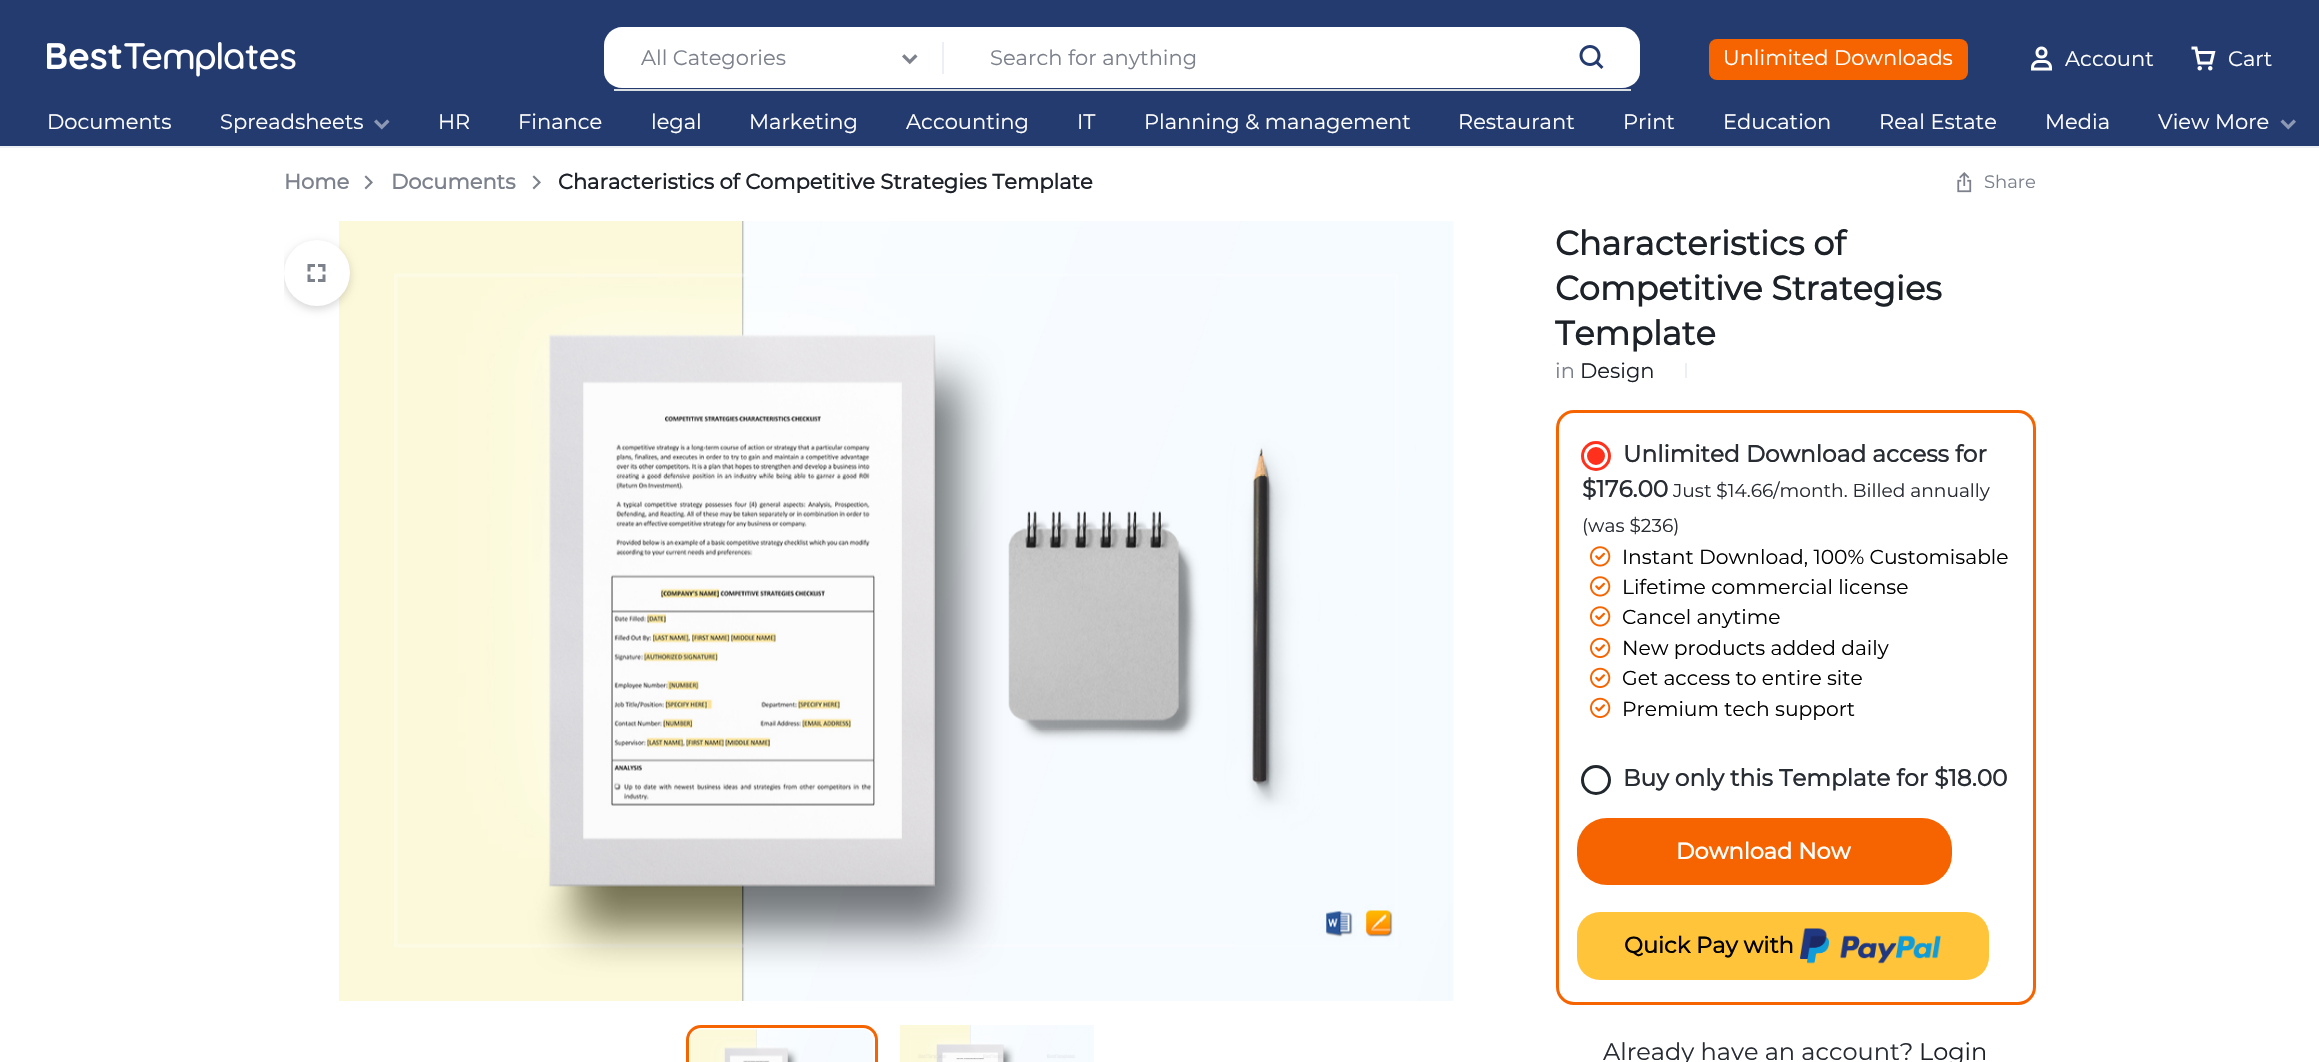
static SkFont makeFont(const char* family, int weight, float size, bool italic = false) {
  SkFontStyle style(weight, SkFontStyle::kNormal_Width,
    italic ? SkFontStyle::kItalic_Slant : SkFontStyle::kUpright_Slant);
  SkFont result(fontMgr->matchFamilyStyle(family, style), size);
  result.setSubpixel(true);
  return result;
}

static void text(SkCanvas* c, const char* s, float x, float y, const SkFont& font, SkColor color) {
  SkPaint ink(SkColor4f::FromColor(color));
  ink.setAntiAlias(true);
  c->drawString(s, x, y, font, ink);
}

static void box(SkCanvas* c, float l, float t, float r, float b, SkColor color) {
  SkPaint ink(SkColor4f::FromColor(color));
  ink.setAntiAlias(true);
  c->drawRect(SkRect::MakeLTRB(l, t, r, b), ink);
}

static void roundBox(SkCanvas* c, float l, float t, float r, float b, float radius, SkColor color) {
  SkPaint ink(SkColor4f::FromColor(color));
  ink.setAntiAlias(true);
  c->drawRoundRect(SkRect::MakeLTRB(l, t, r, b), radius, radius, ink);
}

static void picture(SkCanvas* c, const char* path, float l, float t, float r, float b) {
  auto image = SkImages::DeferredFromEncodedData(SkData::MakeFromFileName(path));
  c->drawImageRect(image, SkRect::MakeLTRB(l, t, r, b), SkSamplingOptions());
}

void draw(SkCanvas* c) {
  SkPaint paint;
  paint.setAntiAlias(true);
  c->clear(0xffffffff);
  box(c, 0, 0, 2319, 146, 0xff243b6f);
  picture(c, "img_01.png", 47, 42, 296, 77);
  paint.setColor(0xffffffff);
  c->drawPath(SkPathBuilder().moveTo(622, 27).lineTo(1622, 27).cubicTo(1631, 27, 1640, 35, 1640, 45).lineTo(1640, 72).cubicTo(1640, 81, 1631, 88, 1622, 88).lineTo(622, 88).cubicTo(613, 88, 604, 81, 604, 72).lineTo(604, 45).cubicTo(604, 35, 613, 27, 622, 27).close().detach(), paint);
  box(c, 614, 89, 1631, 91, 0xffdadfe3);
  SkFont face1 = makeFont("Montserrat", 100, 21);
  text(c, "All Categories", 641, 65, face1, 0xff7c818b);
  picture(c, "img_02.png", 902, 54, 918, 65);
  box(c, 942, 42, 944, 74, 0xffecf0f4);
  text(c, "Search for anything", 990, 65, face1, 0xff7c818b);
  picture(c, "img_03.png", 1579, 45, 1604, 69);
  roundBox(c, 1709, 39, 1968, 80, 8, 0xfff56400);
  text(c, "Unlimited Downloads", 1723, 65, face1, 0xffffffff);
  picture(c, "img_04.png", 2031, 46, 2052, 71);
  text(c, "Account", 2065, 66, face1, 0xffffffff);
  picture(c, "img_05.png", 2191, 46, 2216, 71);
  text(c, "Cart", 2228, 66, face1, 0xffffffff);
  text(c, "Documents", 47, 129, face1, 0xffffffff);
  text(c, "Spreadsheets", 220, 129, face1, 0xffffffff);
  picture(c, "img_06.png", 374, 119, 390, 130);
  text(c, "HR", 438, 129, face1, 0xffffffff);
  text(c, "Finance", 518, 129, face1, 0xffffffff);
  text(c, "legal", 651, 129, face1, 0xffffffff);
  text(c, "Marketing", 749, 129, face1, 0xffffffff);
  text(c, "Accounting", 906, 129, face1, 0xffffffff);
  text(c, "IT", 1077, 129, face1, 0xffffffff);
  text(c, "Planning & management", 1144, 129, face1, 0xffffffff);
  text(c, "Restaurant", 1458, 129, face1, 0xffffffff);
  text(c, "Print", 1623, 129, face1, 0xffffffff);
  text(c, "Education", 1723, 129, face1, 0xffffffff);
  text(c, "Real Estate", 1879, 129, face1, 0xffffffff);
  text(c, "Media", 2045, 129, face1, 0xffffffff);
  text(c, "View More", 2158, 129, face1, 0xffffffff);
  picture(c, "img_07.png", 2280, 119, 2296, 130);
  box(c, 0, 146, 2319, 148, 0xffecf0f4);
  SkFont face2 = makeFont("Montserrat", 700, 21);
  text(c, "Home", 284, 189, face2, 0xff7c818b);
  picture(c, "img_08.png", 364, 175, 373, 190);
  text(c, "Documents", 391, 189, face2, 0xff7c818b);
  picture(c, "img_08.png", 532, 175, 541, 190);
  text(c, "Characteristics of Competitive Strategies Template", 558, 189, face2, 0xff1d2128);
  picture(c, "img_09.png", 1957, 172, 1972, 193);
  SkFont face3 = makeFont("Montserrat", 100, 18);
  text(c, "Share", 1984, 188, face3, 0xff7c818b);
  picture(c, "img_11.png", 339, 221, 1454, 1001);
  c->save();
  c->clipRect(SkRect::MakeLTRB(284, 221, 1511, 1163));
  paint.setColor(0x29000000);
  paint.setMaskFilter(SkMaskFilter::MakeBlur(kNormal_SkBlurStyle, 4.5f));
  c->drawRoundRect(SkRect::MakeLTRB(284, 243, 350, 309), 33, 33, paint);
  paint.setMaskFilter(nullptr);
  c->restore();
  paint.setColor(0xffffffff);
  c->drawCircle(317, 273, 33, paint);
  picture(c, "img_10.png", 307, 264, 326, 282);
  paint.setStyle(SkPaint::kStroke_Style);
  paint.setStrokeWidth(3);
  paint.setColor(0xfff56400);
  c->drawRoundRect(SkRect::MakeLTRB(687.5f, 1026.5f, 876.5f, 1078.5f), 13.5f, 13.5f, paint);
  picture(c, "img_12.png", 690, 1028, 873, 1062);
  picture(c, "img_13.png", 900, 1025, 1094, 1062);
  SkFont face4 = makeFont("Montserrat", 700, 33.6f);
  text(c, "Characteristics of", 1555, 255, face4, 0xff1d2128);
  text(c, "Competitive Strategies", 1555, 300, face4, 0xff1d2128);
  text(c, "Template", 1555, 345, face4, 0xff1d2128);
  text(c, "in", 1555, 378, face1, 0xff7c818b);
  text(c, "Design", 1580, 378, face1, 0xff1d2128);
  box(c, 1685, 363, 1687, 378, 0xffecf0f4);
  c->drawRoundRect(SkRect::MakeLTRB(1557.5f, 411.5f, 2034.5f, 1003.5f), 16.5f, 16.5f, paint);
  paint.setStrokeWidth(2);
  c->drawCircle(1592.5f, 452.5f, 8.5f, paint);
  paint.setStyle(SkPaint::kFill_Style);
  paint.setColor(0xffff311c);
  c->drawCircle(1596, 456, 13.5f, paint);
  paint.setStyle(SkPaint::kStroke_Style);
  paint.setStrokeWidth(3);
  c->drawCircle(1596, 456, 13.5f, paint);
  paint.setColor(0xffffffff);
  c->drawCircle(1596, 456, 10.5f, paint);
  SkFont face5 = makeFont("Montserrat", 700, 23.25f);
  text(c, "Unlimited Download access for", 1623, 462, face5, 0xff282c33);
  text(c, "$176.00", 1582, 497, face5, 0xff282c33);
  SkFont face6 = makeFont("Montserrat", 100, 18.6f);
  text(c, "Just $14.66/month. Billed annually", 1673, 497, face6, 0xff282c33);
  text(c, "(was $236)", 1582, 532, face6, 0xff282c33);
  picture(c, "img_14.png", 1590, 546, 1611, 567);
  SkFont face7 = makeFont("Montserrat", 100, 20.25f);
  text(c, "Instant Download, 100% Customisable", 1622, 564, face7, 0xff040303);
  picture(c, "img_14.png", 1590, 576, 1611, 597);
  text(c, "Lifetime commercial license", 1622, 594, face7, 0xff040303);
  picture(c, "img_14.png", 1590, 606, 1611, 627);
  text(c, "Cancel anytime", 1622, 624, face7, 0xff040303);
  picture(c, "img_15.png", 1590, 637, 1611, 658);
  text(c, "New products added daily", 1622, 655, face7, 0xff040303);
  picture(c, "img_15.png", 1590, 667, 1611, 688);
  text(c, "Get access to entire site", 1622, 685, face7, 0xff040303);
  picture(c, "img_15.png", 1590, 697, 1611, 718);
  text(c, "Premium tech support", 1622, 716, face7, 0xff040303);
  paint.setStrokeWidth(2);
  paint.setColor(0xff767676);
  c->drawCircle(1592.5f, 776.5f, 8.5f, paint);
  paint.setStyle(SkPaint::kFill_Style);
  paint.setColor(0xffffffff);
  c->drawCircle(1596, 780, 13.5f, paint);
  paint.setStyle(SkPaint::kStroke_Style);
  paint.setStrokeWidth(3);
  paint.setColor(0xff20272d);
  c->drawCircle(1596, 780, 13.5f, paint);
  text(c, "Buy only this Template for $18.00", 1623, 786, face5, 0xff282c33);
  roundBox(c, 1577, 818, 1952, 885, 30, 0xfff56400);
  SkFont face8 = makeFont("Montserrat", 700, 22.5f);
  text(c, "Download Now", 1676, 859, face8, 0xffffffff);
  roundBox(c, 1577, 912, 1989, 980, 23, 0xffffc439);
  text(c, "Quick Pay with", 1624, 953, face8, 0xff040303);
  picture(c, "img_16.png", 1800, 928, 1941, 964);
  SkFont face9 = makeFont("Montserrat", 100, 24);
  text(c, "Already have an account?", 1603, 1060, face9, 0xff282c33);
  text(c, "Login", 1919, 1060, face9, 0xff1d2128);
}
